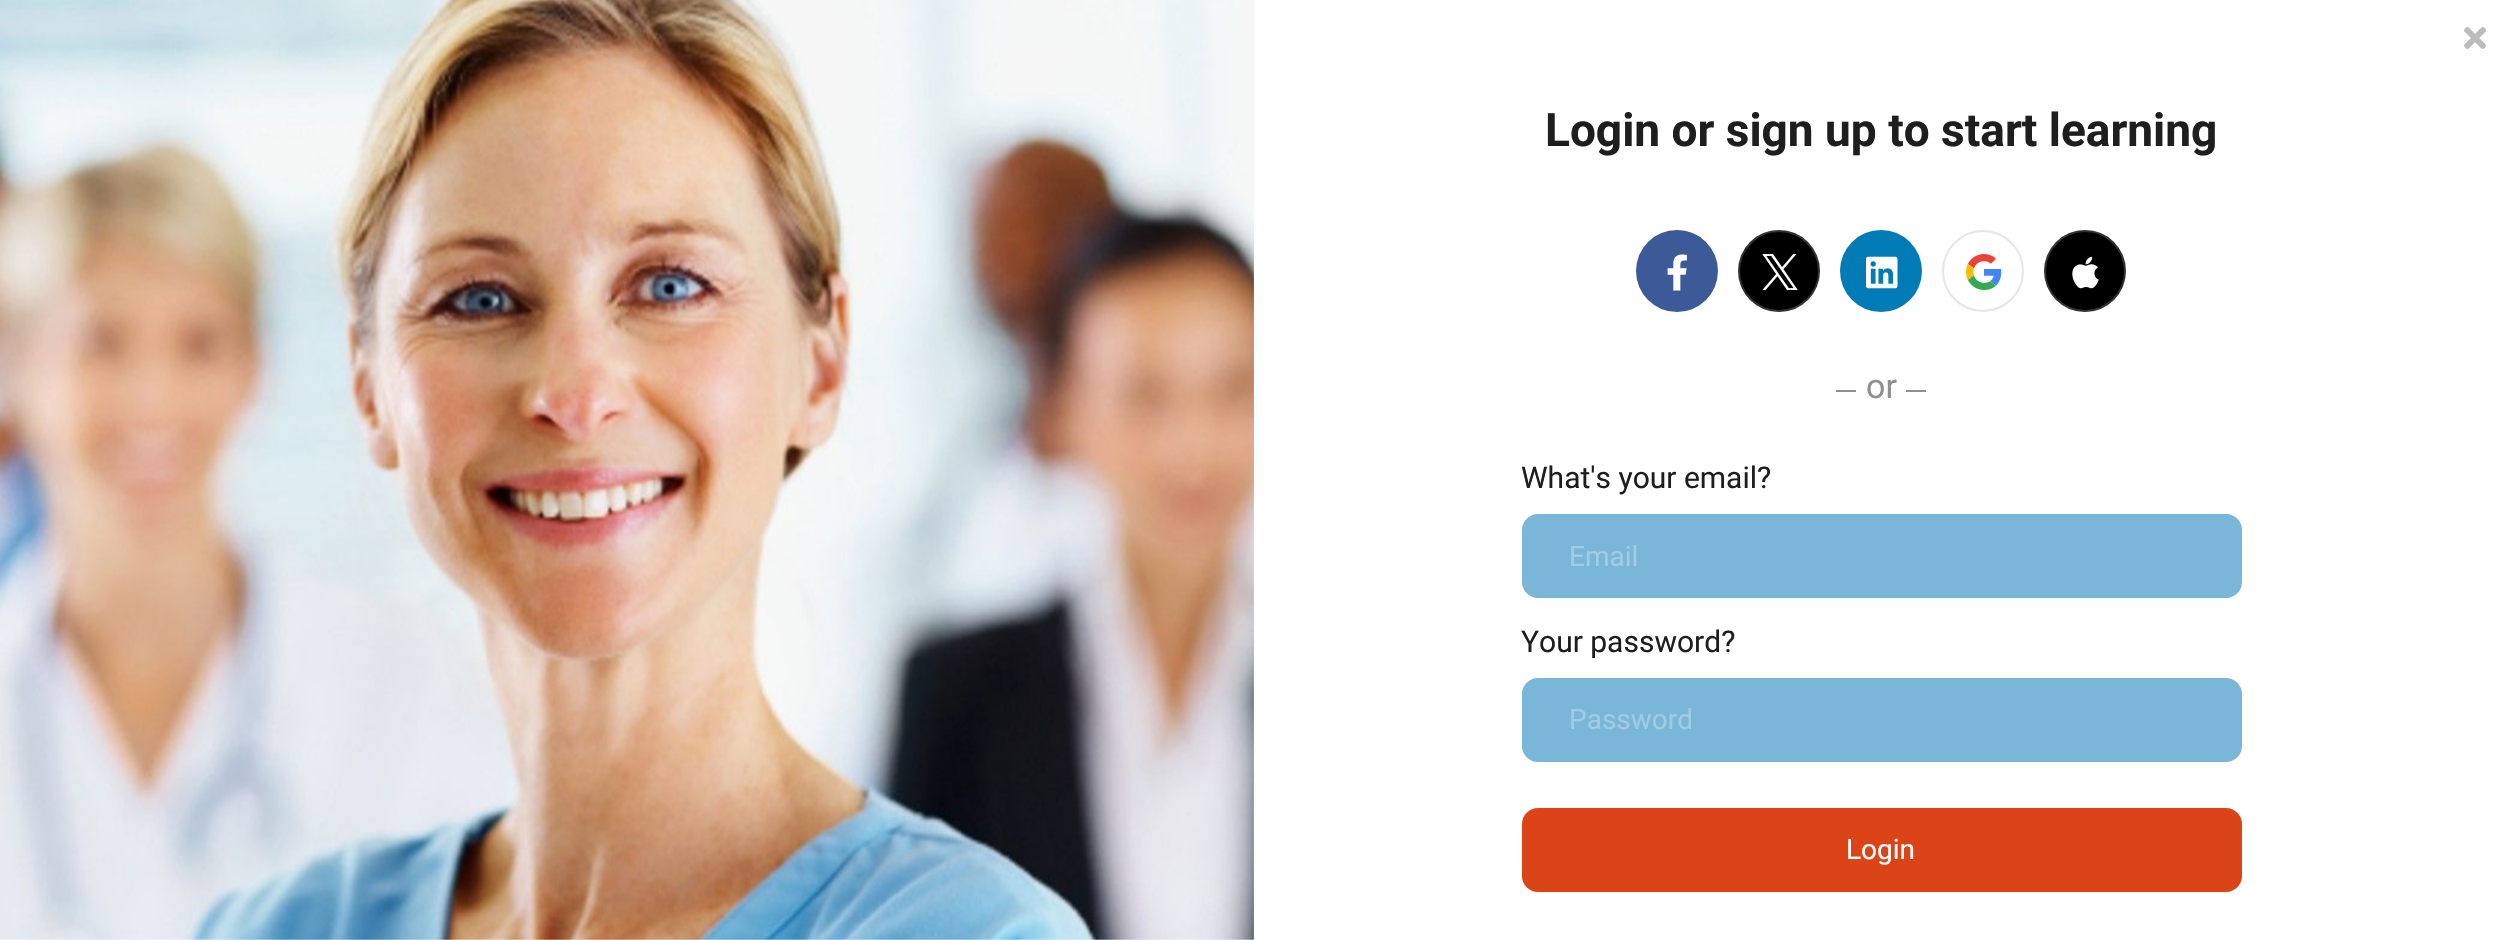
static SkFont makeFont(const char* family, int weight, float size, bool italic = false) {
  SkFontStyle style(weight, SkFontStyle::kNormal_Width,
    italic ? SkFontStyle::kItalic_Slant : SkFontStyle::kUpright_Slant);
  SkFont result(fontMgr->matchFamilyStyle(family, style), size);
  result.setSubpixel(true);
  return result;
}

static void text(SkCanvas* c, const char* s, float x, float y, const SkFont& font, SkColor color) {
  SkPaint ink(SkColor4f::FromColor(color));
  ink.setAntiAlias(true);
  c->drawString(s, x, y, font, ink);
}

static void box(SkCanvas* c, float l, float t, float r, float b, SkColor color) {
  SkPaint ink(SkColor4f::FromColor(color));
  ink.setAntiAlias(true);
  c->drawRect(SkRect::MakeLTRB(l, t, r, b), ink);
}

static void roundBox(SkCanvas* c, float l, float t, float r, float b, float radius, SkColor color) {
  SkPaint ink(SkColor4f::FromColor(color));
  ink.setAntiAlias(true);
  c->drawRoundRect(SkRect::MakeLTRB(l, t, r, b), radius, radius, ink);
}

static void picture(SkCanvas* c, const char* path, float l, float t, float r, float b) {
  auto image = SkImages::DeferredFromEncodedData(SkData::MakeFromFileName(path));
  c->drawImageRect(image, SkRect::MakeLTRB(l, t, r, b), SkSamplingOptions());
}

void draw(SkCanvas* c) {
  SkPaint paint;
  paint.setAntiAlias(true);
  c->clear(0xffffffff);
  picture(c, "img_01.png", 0, 0, 1254, 940);
  picture(c, "img_02.png", 2464, 27, 2486, 49);
  SkFont face1 = makeFont("Roboto", 700, 46);
  text(c, "Login or sign up to start learning", 1545, 146, face1, 0xff1e1e1e);
  paint.setColor(0xff3c5a98);
  c->drawCircle(1677, 271, 41, paint);
  picture(c, "img_03.png", 1667, 254, 1687, 291);
  paint.setColor(0xff000000);
  c->drawCircle(1779, 271, 41, paint);
  paint.setStyle(SkPaint::kStroke_Style);
  paint.setStrokeWidth(2);
  paint.setColor(0x33ffffff);
  c->drawCircle(1779, 271, 40, paint);
  picture(c, "img_04.png", 1762, 254, 1798, 290);
  paint.setStyle(SkPaint::kFill_Style);
  paint.setColor(0xff007bb6);
  c->drawCircle(1881, 271, 41, paint);
  picture(c, "img_05.png", 1866, 256, 1898, 289);
  paint.setStyle(SkPaint::kStroke_Style);
  paint.setColor(0xffe6e6e6);
  c->drawCircle(1983, 271, 40, paint);
  picture(c, "img_06.png", 1966, 254, 2002, 290);
  paint.setStyle(SkPaint::kFill_Style);
  paint.setColor(0xff000000);
  c->drawCircle(2085, 271, 41, paint);
  paint.setStyle(SkPaint::kStroke_Style);
  paint.setColor(0x33ffffff);
  c->drawCircle(2085, 271, 40, paint);
  picture(c, "img_07.png", 2072, 256, 2099, 289);
  box(c, 1836, 390, 1856, 392, 0xff8f8f8f);
  SkFont face2 = makeFont("Roboto", 400, 34);
  text(c, "or", 1866, 398, face2, 0xff8f8f8f);
  box(c, 1906, 390, 1926, 392, 0xff8f8f8f);
  SkFont face3 = makeFont("Roboto", 400, 30);
  text(c, "What's your email?", 1521, 488, face3, 0xff1e1e1e);
  paint.setStyle(SkPaint::kFill_Style);
  paint.setColor(0xff79b6d7);
  c->drawRoundRect(SkRect::MakeLTRB(1524, 516, 2240, 596), 14, 14, paint);
  paint.setStyle(SkPaint::kStroke_Style);
  paint.setStrokeWidth(4);
  c->drawRoundRect(SkRect::MakeLTRB(1524, 516, 2240, 596), 14, 14, paint);
  SkFont face4 = makeFont("Roboto", 400, 28);
  text(c, "Email", 1569, 566, face4, 0xffa1cce3);
  text(c, "Your password?", 1521, 652, face3, 0xff1e1e1e);
  paint.setStyle(SkPaint::kFill_Style);
  c->drawRoundRect(SkRect::MakeLTRB(1524, 680, 2240, 760), 14, 14, paint);
  paint.setStyle(SkPaint::kStroke_Style);
  c->drawRoundRect(SkRect::MakeLTRB(1524, 680, 2240, 760), 14, 14, paint);
  text(c, "Password", 1569, 729, face4, 0xffa1cce3);
  roundBox(c, 1522, 808, 2242, 892, 16, 0xffdb4417);
  text(c, "Login", 1846, 859, face4, 0xffffffff);
}
